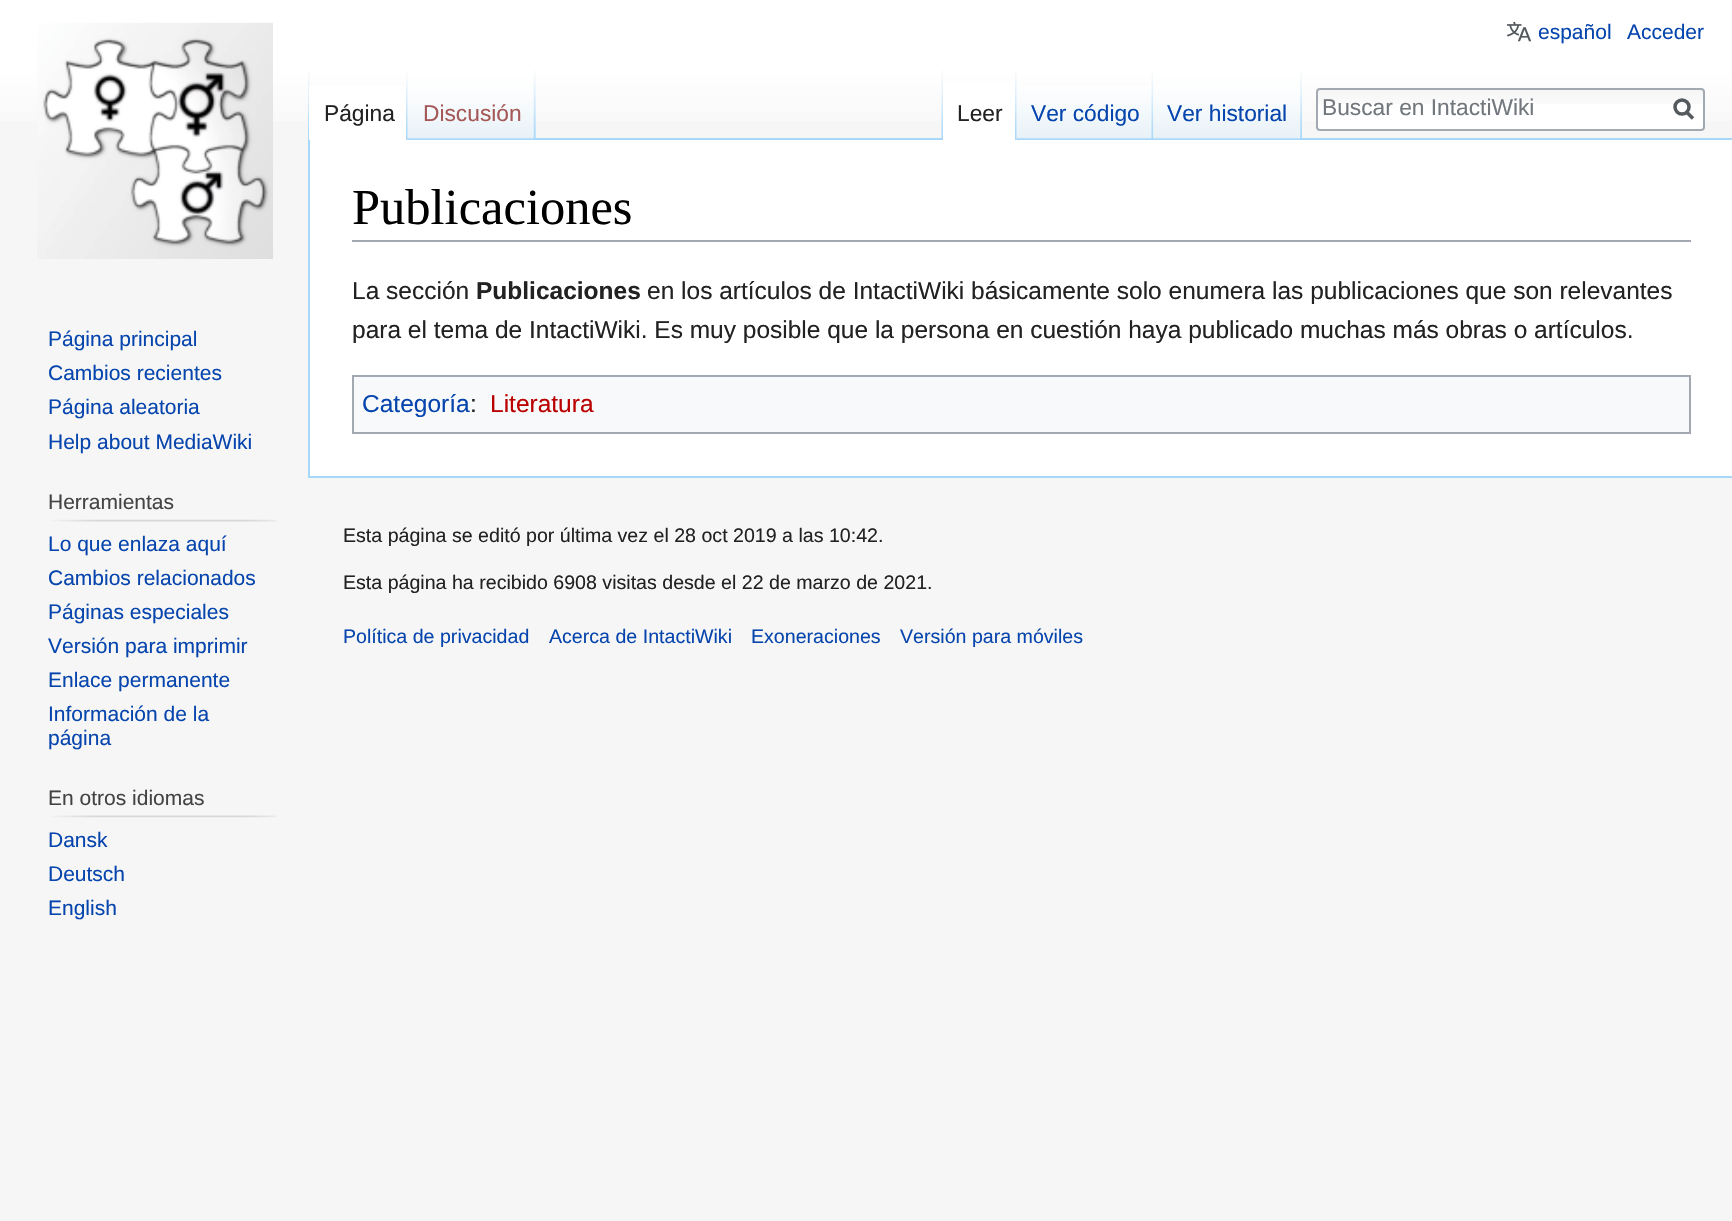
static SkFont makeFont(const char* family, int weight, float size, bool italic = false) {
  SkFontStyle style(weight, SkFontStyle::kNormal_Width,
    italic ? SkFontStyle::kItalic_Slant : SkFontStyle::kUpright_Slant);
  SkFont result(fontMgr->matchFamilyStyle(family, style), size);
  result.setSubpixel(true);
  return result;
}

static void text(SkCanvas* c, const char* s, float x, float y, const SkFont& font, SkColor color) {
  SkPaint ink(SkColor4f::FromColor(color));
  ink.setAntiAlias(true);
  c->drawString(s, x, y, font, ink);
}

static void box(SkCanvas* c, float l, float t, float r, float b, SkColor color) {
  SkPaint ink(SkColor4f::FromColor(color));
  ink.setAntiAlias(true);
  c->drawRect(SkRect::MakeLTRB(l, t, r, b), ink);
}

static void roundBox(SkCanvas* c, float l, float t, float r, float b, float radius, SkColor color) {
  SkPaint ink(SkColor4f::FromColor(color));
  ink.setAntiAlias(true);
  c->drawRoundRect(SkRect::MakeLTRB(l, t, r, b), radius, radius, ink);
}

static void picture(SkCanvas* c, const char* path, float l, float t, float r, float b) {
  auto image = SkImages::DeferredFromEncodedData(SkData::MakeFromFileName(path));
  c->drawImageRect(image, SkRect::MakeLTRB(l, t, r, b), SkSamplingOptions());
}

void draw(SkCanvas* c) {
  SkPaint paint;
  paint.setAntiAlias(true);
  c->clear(0xfff6f6f6);
  {
    const SkColor colors[] = {0xffffffff, 0xfff6f6f6};
    const float stops[] = {0.5f, 1};
    const SkPoint ends[] = {{866, 0}, {866, 140}};
    paint.setShader(SkGradientShader::MakeLinear(ends, colors, stops, 2, SkTileMode::kClamp));
    paint.setAlpha(255);
  }
  c->drawRect(SkRect::MakeLTRB(0, 0, 1732, 121), paint);
  picture(c, "img_01.png", 1507, 21, 1531, 42);
  SkFont face1 = makeFont("Liberation Sans", 400, 21);
  text(c, "español", 1538, 39, face1, 0xff0645ad);
  text(c, "Acceder", 1627, 39, face1, 0xff0645ad);
  picture(c, "img_02.png", 308, 70, 310, 138);
  picture(c, "img_03.png", 535, 70, 536, 138);
  box(c, 308, 476, 1732, 478, 0xffa7d7f9);
  box(c, 308, 138, 310, 478, 0xffa7d7f9);
  box(c, 309, 86, 408, 140, 0xffffffff);
  picture(c, "img_04.png", 406, 70, 408, 140);
  SkFont face2 = makeFont("Liberation Sans", 400, 22.75f);
  text(c, "Página", 324, 121, face2, 0xff222222);
  box(c, 535, 138, 1732, 140, 0xffa7d7f9);
  picture(c, "img_05.png", 407, 70, 536, 140);
  picture(c, "img_06.png", 533, 70, 536, 139);
  text(c, "Discusión", 423, 121, face2, 0xffa55858);
  picture(c, "img_07.png", 941, 70, 944, 138);
  box(c, 943, 82, 1017, 140, 0xffffffff);
  picture(c, "img_08.png", 1015, 70, 1017, 140);
  text(c, "Leer", 957, 121, face2, 0xff222222);
  picture(c, "img_09.png", 1016, 87, 1154, 140);
  picture(c, "img_10.png", 1151, 70, 1154, 139);
  text(c, "Ver código", 1031, 121, face2, 0xff0645ad);
  picture(c, "img_11.png", 1153, 70, 1301, 139);
  picture(c, "img_12.png", 1300, 70, 1302, 139);
  text(c, "Ver historial", 1167, 121, face2, 0xff0645ad);
  roundBox(c, 1316, 88, 1705, 131, 4, 0xffffffff);
  picture(c, "img_13.png", 1316, 89, 1704, 104);
  paint.setStyle(SkPaint::kStroke_Style);
  paint.setStrokeWidth(2);
  paint.setShader(nullptr);
  paint.setColor(0xffa2a9b1);
  c->drawRoundRect(SkRect::MakeLTRB(1317, 89, 1704, 130), 3, 3, paint);
  text(c, "Buscar en IntactiWiki", 1322, 115, face2, 0xff72777d);
  paint.setStrokeWidth(3.5f);
  paint.setColor(0xff54595d);
  c->drawPath(SkPathBuilder().moveTo(1693, 118.5f).lineTo(1686, 111.5f).detach(), paint);
  c->drawCircle(1682, 107, 7, paint);
  picture(c, "img_14.png", 37, 22, 273, 259);
  text(c, "Página principal", 48, 346, face1, 0xff0645ad);
  text(c, "Cambios recientes", 48, 380, face1, 0xff0645ad);
  text(c, "Página aleatoria", 48, 414, face1, 0xff0645ad);
  text(c, "Help about MediaWiki", 48, 449, face1, 0xff0645ad);
  text(c, "Herramientas", 48, 509, face1, 0xff444444);
  picture(c, "img_15.png", 52, 519, 277, 522);
  text(c, "Lo que enlaza aquí", 48, 551, face1, 0xff0645ad);
  text(c, "Cambios relacionados", 48, 585, face1, 0xff0645ad);
  text(c, "Páginas especiales", 48, 619, face1, 0xff0645ad);
  text(c, "Versión para imprimir", 48, 653, face1, 0xff0645ad);
  text(c, "Enlace permanente", 48, 687, face1, 0xff0645ad);
  text(c, "Información de la", 48, 721, face1, 0xff0645ad);
  text(c, "página", 48, 745, face1, 0xff0645ad);
  text(c, "En otros idiomas", 48, 805, face1, 0xff444444);
  picture(c, "img_16.png", 52, 815, 277, 818);
  text(c, "Dansk", 48, 847, face1, 0xff0645ad);
  text(c, "Deutsch", 48, 881, face1, 0xff0645ad);
  text(c, "English", 48, 915, face1, 0xff0645ad);
  box(c, 310, 140, 1732, 476, 0xffffffff);
  box(c, 352, 240, 1691, 242, 0xffa2a9b1);
  SkFont face3 = makeFont("Liberation Serif", 400, 50.5f);
  text(c, "Publicaciones", 352, 224, face3, 0xff000000);
  SkFont face4 = makeFont("Liberation Sans", 400, 24.5f);
  text(c, "La sección", 352, 299, face4, 0xff222222);
  SkFont face5 = makeFont("Liberation Sans", 700, 24.5f);
  text(c, "Publicaciones", 476, 299, face5, 0xff222222);
  text(c, "en los artículos de IntactiWiki básicamente solo enumera las publicaciones que son relevantes", 647, 299, face4, 0xff222222);
  text(c, "para el tema de IntactiWiki. Es muy posible que la persona en cuestión haya publicado muchas más obras o artículos.", 352, 338, face4, 0xff222222);
  paint.setStyle(SkPaint::kFill_Style);
  paint.setColor(0xfff8f9fa);
  c->drawRect(SkRect::MakeLTRB(353, 376, 1690, 433), paint);
  paint.setStyle(SkPaint::kStroke_Style);
  paint.setStrokeWidth(2);
  paint.setColor(0xffa2a9b1);
  c->drawRect(SkRect::MakeLTRB(353, 376, 1690, 433), paint);
  text(c, "Categoría", 362, 412, face4, 0xff0645ad);
  text(c, ":", 470, 412, face4, 0xff222222);
  text(c, "Literatura", 490, 412, face4, 0xffba0000);
  SkFont face6 = makeFont("Liberation Sans", 400, 19.6f);
  text(c, "Esta página se editó por última vez el 28 oct 2019 a las 10:42.", 343, 542, face6, 0xff222222);
  text(c, "Esta página ha recibido 6908 visitas desde el 22 de marzo de 2021.", 343, 589, face6, 0xff222222);
  text(c, "Política de privacidad", 343, 643, face6, 0xff0645ad);
  text(c, "Acerca de IntactiWiki", 549, 643, face6, 0xff0645ad);
  text(c, "Exoneraciones", 751, 643, face6, 0xff0645ad);
  text(c, "Versión para móviles", 900, 643, face6, 0xff0645ad);
}
